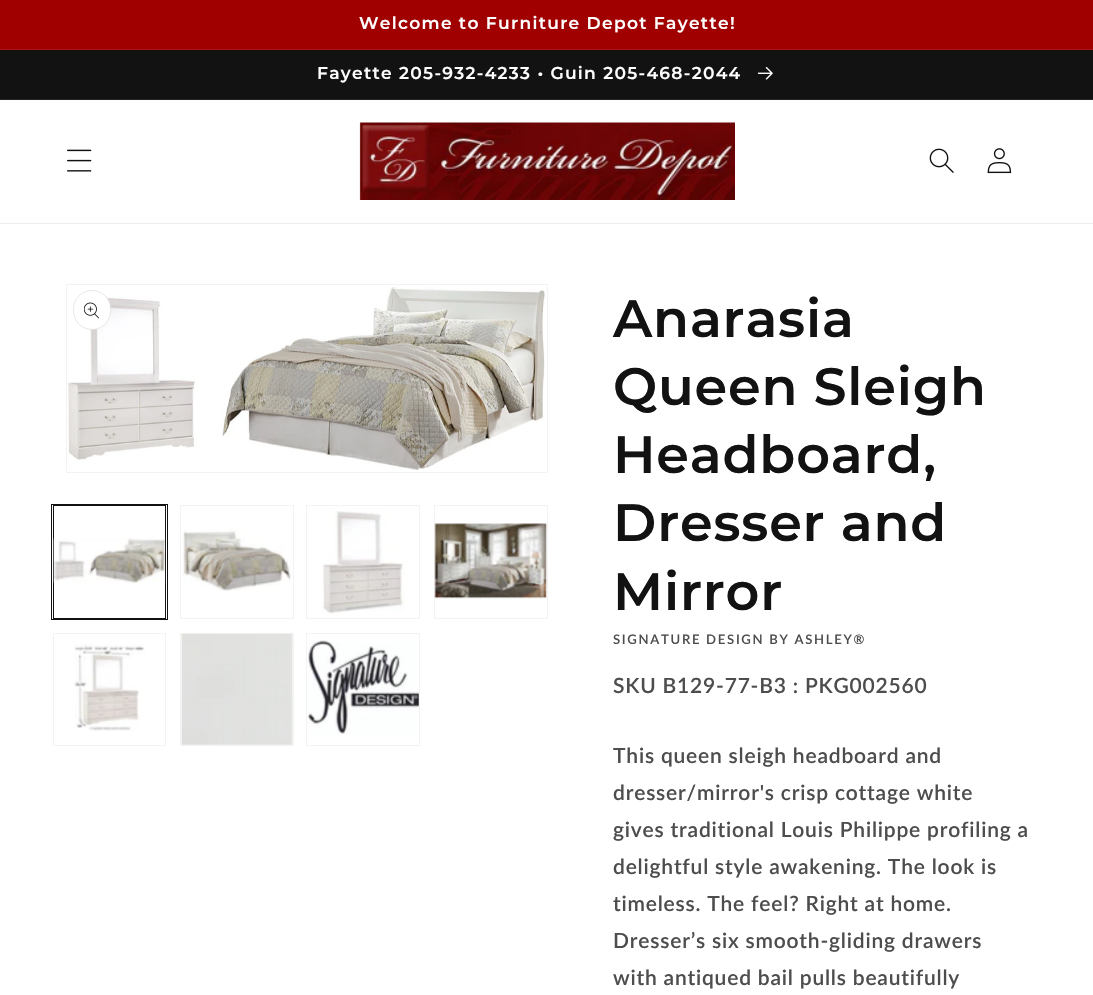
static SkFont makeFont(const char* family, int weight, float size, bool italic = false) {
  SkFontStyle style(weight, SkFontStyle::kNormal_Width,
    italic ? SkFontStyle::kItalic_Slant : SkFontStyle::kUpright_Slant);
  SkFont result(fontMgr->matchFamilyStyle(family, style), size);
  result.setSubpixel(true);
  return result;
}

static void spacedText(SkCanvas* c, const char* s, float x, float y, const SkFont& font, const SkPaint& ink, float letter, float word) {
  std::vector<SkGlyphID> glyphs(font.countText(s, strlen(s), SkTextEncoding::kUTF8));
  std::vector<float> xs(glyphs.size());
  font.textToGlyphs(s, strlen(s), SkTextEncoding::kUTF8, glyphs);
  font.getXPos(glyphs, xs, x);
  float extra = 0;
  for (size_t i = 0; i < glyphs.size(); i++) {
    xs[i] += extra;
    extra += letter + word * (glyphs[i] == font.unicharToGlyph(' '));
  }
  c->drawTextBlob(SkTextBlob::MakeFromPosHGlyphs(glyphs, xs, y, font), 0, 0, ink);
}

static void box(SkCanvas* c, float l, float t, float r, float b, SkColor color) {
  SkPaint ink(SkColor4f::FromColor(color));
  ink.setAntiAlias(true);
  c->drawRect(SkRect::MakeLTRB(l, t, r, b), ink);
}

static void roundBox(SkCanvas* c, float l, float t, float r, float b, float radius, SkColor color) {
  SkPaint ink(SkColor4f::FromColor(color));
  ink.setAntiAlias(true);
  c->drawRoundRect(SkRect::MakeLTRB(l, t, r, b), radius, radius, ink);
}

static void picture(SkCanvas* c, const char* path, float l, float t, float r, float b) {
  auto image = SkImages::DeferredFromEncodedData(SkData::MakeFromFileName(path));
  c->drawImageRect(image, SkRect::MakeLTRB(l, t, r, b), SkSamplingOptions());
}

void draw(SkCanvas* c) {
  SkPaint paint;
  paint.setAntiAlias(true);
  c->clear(0xffffffff);
  box(c, 0, 0, 1093, 49, 0xffa10000);
  box(c, 0, 49, 1093, 50, 0xffa91414);
  SkFont face1 = makeFont("Montserrat", 600, 17.1f);
  paint.setColor(0xffffffff);
  spacedText(c, "Welcome to Furniture Depot Fayette!", 359, 29, face1, paint, 1.3f, 0);
  box(c, 0, 50, 1093, 99, 0xff121212);
  box(c, 0, 99, 1093, 100, 0xff252525);
  spacedText(c, "Fayette 205-932-4233 • Guin 205-468-2044", 317, 79, face1, paint, 1.3f, 0);
  picture(c, "img_01.png", 758, 67, 773, 80);
  box(c, 0, 223, 1093, 224, 0xffececec);
  picture(c, "img_02.png", 67, 149, 92, 172);
  picture(c, "img_03.png", 359, 122, 735, 200);
  picture(c, "img_04.png", 929, 148, 954, 173);
  picture(c, "img_05.png", 987, 148, 1012, 174);
  paint.setStyle(SkPaint::kStroke_Style);
  paint.setStrokeWidth(1);
  paint.setColor(0xfff3f3f3);
  c->drawRect(SkRect::MakeLTRB(66.5f, 284.5f, 547.5f, 472.5f), paint);
  picture(c, "img_06.png", 67, 287, 546, 470);
  roundBox(c, 73, 290, 111, 330, 19, 0xffffffff);
  paint.setColor(0x1a121212);
  c->drawRoundRect(SkRect::MakeLTRB(73.5f, 290.5f, 110.5f, 329.5f), 18.5f, 18.5f, paint);
  picture(c, "img_07.png", 84, 302, 99, 319);
  paint.setColor(0xff121212);
  c->drawRect(SkRect::MakeLTRB(51.5f, 504.5f, 167.5f, 619.5f), paint);
  c->drawRect(SkRect::MakeLTRB(53.5f, 505.5f, 165.5f, 618.5f), paint);
  picture(c, "img_08.png", 53, 538, 166, 584);
  paint.setColor(0xfff3f3f3);
  c->drawRect(SkRect::MakeLTRB(180.5f, 505.5f, 293.5f, 618.5f), paint);
  picture(c, "img_09.png", 182, 529, 291, 591);
  c->drawRect(SkRect::MakeLTRB(306.5f, 505.5f, 419.5f, 618.5f), paint);
  picture(c, "img_10.png", 322, 511, 405, 615);
  c->drawRect(SkRect::MakeLTRB(434.5f, 505.5f, 547.5f, 618.5f), paint);
  picture(c, "img_11.png", 434, 523, 547, 599);
  c->drawRect(SkRect::MakeLTRB(53.5f, 633.5f, 165.5f, 745.5f), paint);
  picture(c, "img_12.png", 74, 644, 145, 731);
  c->drawRect(SkRect::MakeLTRB(180.5f, 633.5f, 293.5f, 745.5f), paint);
  picture(c, "img_13.png", 181, 633, 293, 745);
  c->drawRect(SkRect::MakeLTRB(306.5f, 633.5f, 419.5f, 745.5f), paint);
  picture(c, "img_14.png", 307, 640, 419, 734);
  SkFont face2 = makeFont("Montserrat", 600, 52.5f);
  paint.setStyle(SkPaint::kFill_Style);
  paint.setColor(0xff121212);
  spacedText(c, "Anarasia", 613, 337, face2, paint, 0.8f, 0);
  spacedText(c, "Queen Sleigh", 613, 405, face2, paint, 0.8f, 0);
  spacedText(c, "Headboard,", 613, 473, face2, paint, 0.8f, 0);
  spacedText(c, "Dresser and", 613, 541, face2, paint, 0.8f, 0);
  spacedText(c, "Mirror", 613, 610, face2, paint, 0.8f, 0);
  SkFont face3 = makeFont("Lato", 600, 13.1f);
  paint.setColor(0xff4d4d4d);
  spacedText(c, "SIGNATURE DESIGN BY ASHLEY®", 613, 644, face3, paint, 1.7f, 0);
  SkFont face4 = makeFont("Lato", 600, 21);
  spacedText(c, "SKU B129-77-B3 : PKG002560", 613, 693, face4, paint, 0.8f, 0);
  spacedText(c, "This queen sleigh headboard and", 613, 763, face4, paint, 0.8f, 0);
  spacedText(c, "dresser/mirror's crisp cottage white", 613, 800, face4, paint, 0.8f, 0);
  spacedText(c, "gives traditional Louis Philippe profiling a", 613, 837, face4, paint, 0.8f, 0);
  spacedText(c, "delightful style awakening. The look is", 613, 874, face4, paint, 0.8f, 0);
  spacedText(c, "timeless. The feel? Right at home.", 613, 911, face4, paint, 0.8f, 0);
  spacedText(c, "Dresser’s six smooth-gliding drawers", 613, 948, face4, paint, 0.8f, 0);
  spacedText(c, "with antiqued bail pulls beautifully", 613, 985, face4, paint, 0.8f, 0);
}
